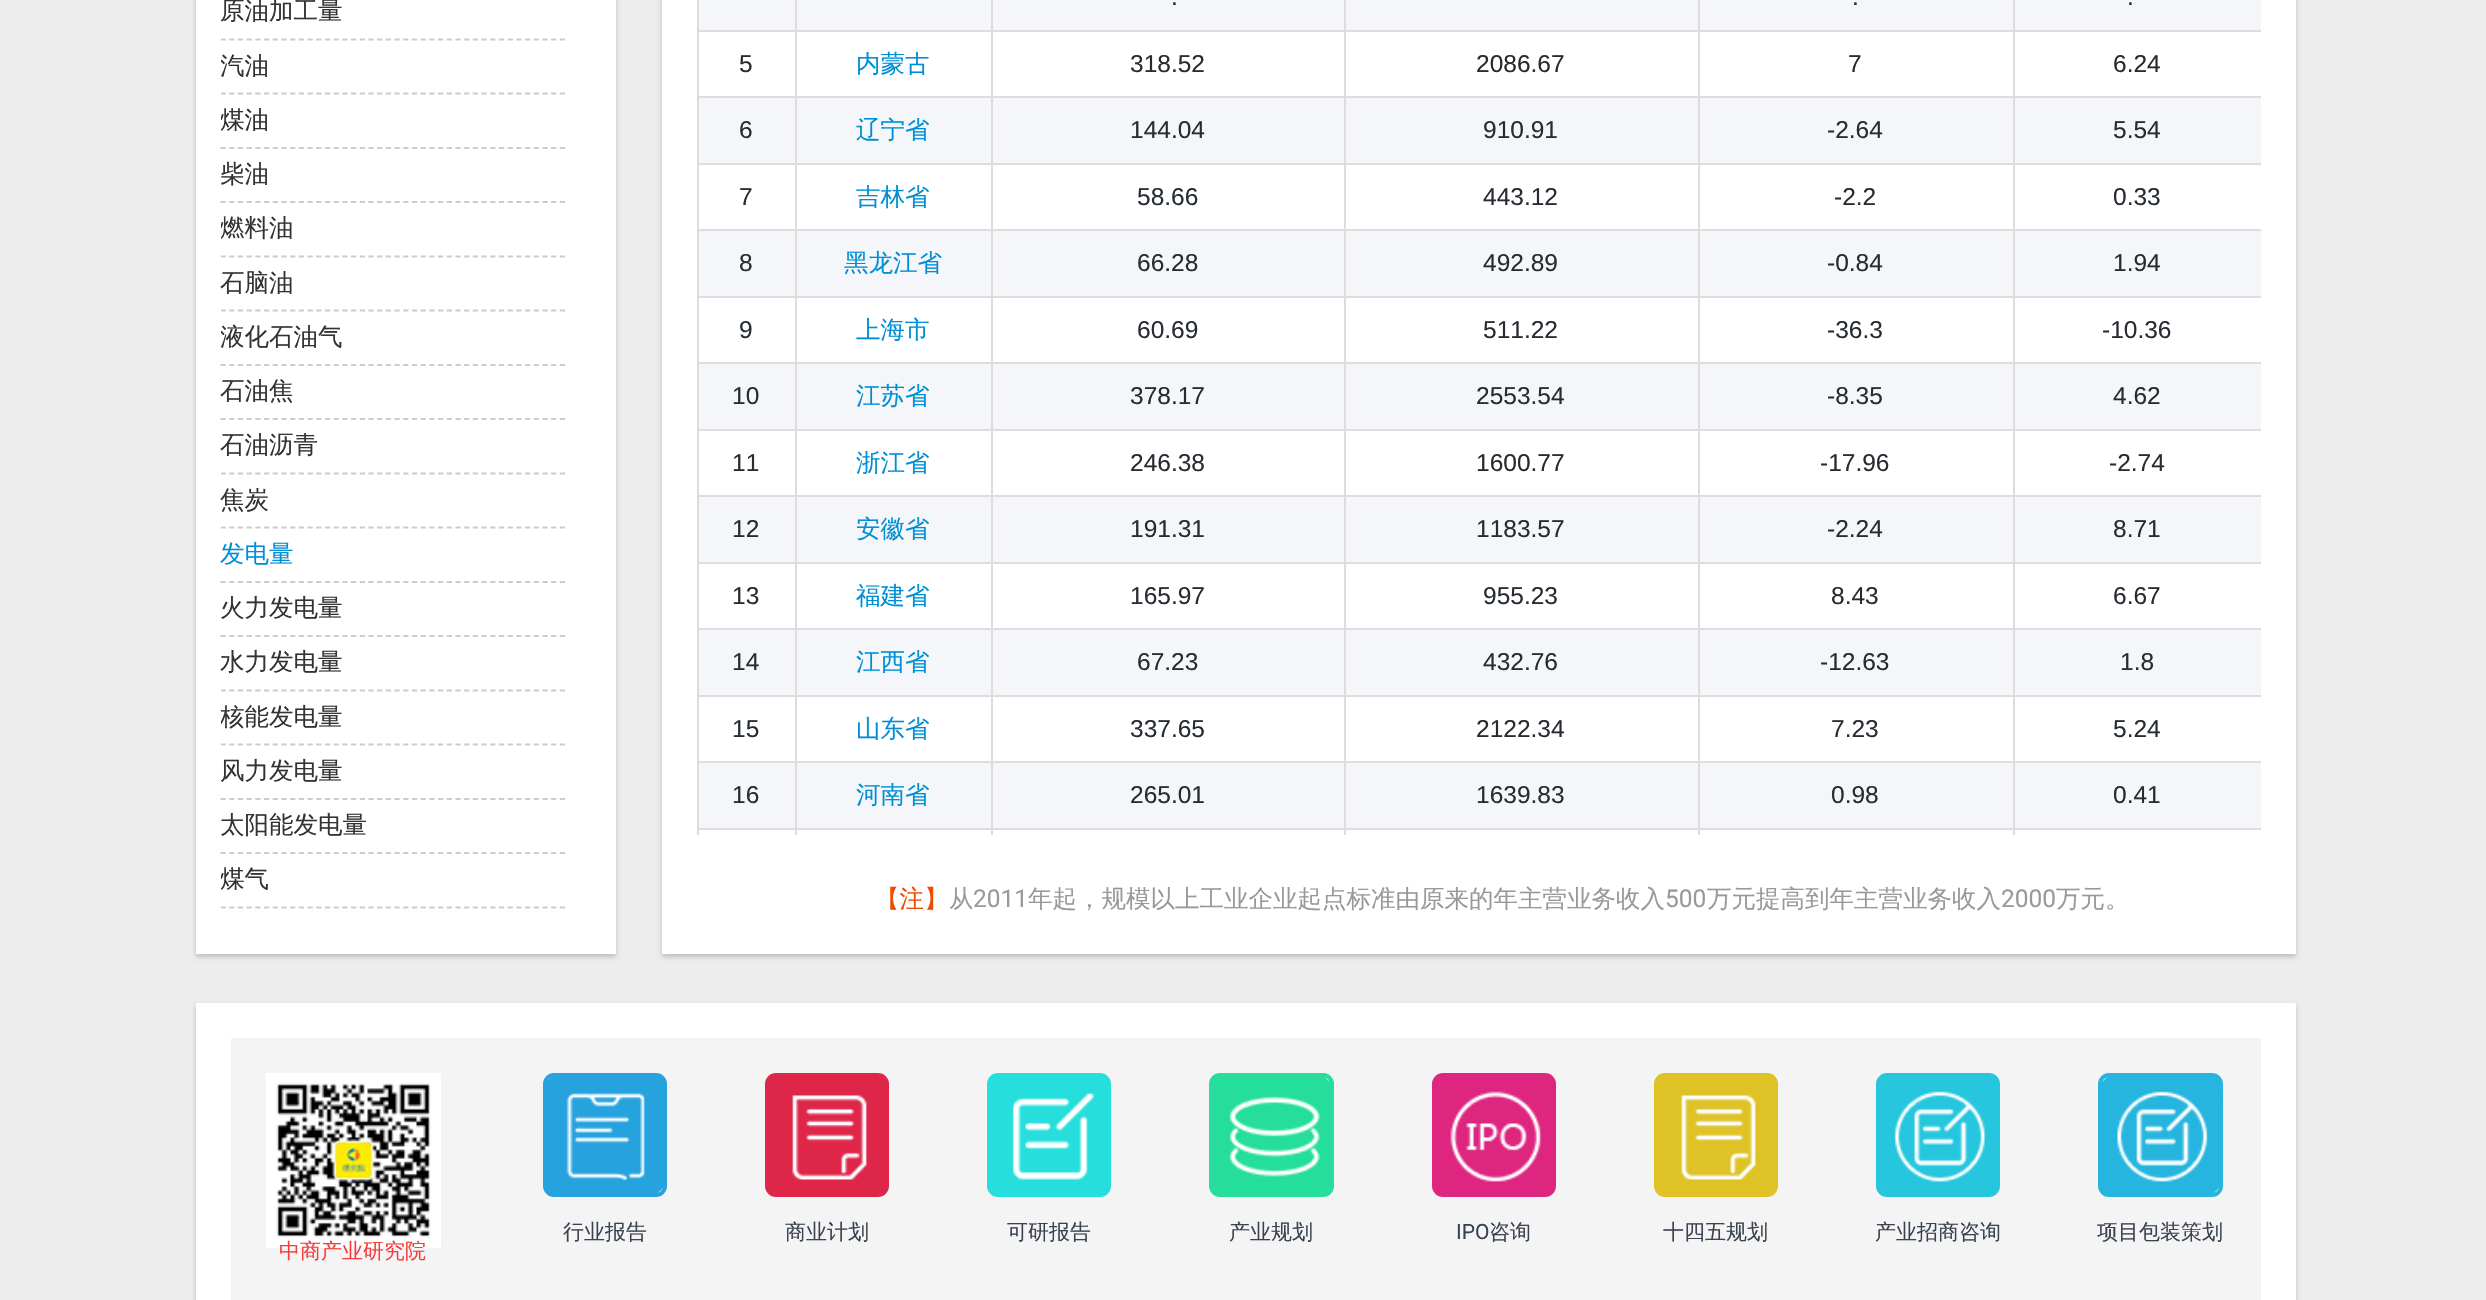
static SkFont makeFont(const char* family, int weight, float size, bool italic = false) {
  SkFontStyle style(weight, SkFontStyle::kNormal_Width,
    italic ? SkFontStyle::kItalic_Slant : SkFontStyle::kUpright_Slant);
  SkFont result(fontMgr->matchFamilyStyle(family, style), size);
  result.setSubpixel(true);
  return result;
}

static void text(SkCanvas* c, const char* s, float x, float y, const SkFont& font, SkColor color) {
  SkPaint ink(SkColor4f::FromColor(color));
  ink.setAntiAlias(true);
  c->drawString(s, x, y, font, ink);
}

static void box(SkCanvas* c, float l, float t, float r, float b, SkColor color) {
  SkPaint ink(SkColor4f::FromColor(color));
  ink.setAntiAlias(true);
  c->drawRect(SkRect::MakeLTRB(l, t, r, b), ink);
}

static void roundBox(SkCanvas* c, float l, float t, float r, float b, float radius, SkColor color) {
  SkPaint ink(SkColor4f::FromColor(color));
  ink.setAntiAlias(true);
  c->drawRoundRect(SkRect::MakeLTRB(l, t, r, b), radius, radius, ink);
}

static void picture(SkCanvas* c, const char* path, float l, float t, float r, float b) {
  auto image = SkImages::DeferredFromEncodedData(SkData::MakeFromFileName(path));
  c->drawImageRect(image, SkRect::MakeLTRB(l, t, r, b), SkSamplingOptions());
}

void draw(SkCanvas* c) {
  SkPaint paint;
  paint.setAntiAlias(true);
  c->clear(0xffededed);
  paint.setColor(0x33000000);
  paint.setMaskFilter(SkMaskFilter::MakeBlur(kNormal_SkBlurStyle, 2.5f));
  c->drawRect(SkRect::MakeLTRB(196, -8, 616, 957), paint);
  paint.setMaskFilter(nullptr);
  box(c, 196, 0, 616, 954, 0xffffffff);
  c->save();
  c->clipRect(SkRect::MakeLTRB(221, 0, 592, 919));
  paint.setStyle(SkPaint::kStroke_Style);
  paint.setStrokeWidth(1.8f);
  paint.setColor(0xffcccccc);
  paint.setPathEffect(SkDashPathEffect::Make({{5.25f, 3.45f}}, 0));
  c->drawPath(SkPathBuilder().moveTo(220.5f, 39.5f).lineTo(565, 39.5f).detach(), paint);
  paint.setPathEffect(nullptr);
  c->restore();
  SkFont face1 = makeFont("WenQuanYi Zen Hei", 500, 24.5f);
  text(c, "原油加工量", 220, 19, face1, 0xff333333);
  c->save();
  c->clipRect(SkRect::MakeLTRB(221, 0, 592, 919));
  paint.setPathEffect(SkDashPathEffect::Make({{5.25f, 3.45f}}, 0));
  c->drawPath(SkPathBuilder().moveTo(220.5f, 93.5f).lineTo(565, 93.5f).detach(), paint);
  paint.setPathEffect(nullptr);
  text(c, "汽油", 220, 74, face1, 0xff333333);
  c->restore();
  paint.setPathEffect(SkDashPathEffect::Make({{5.25f, 3.45f}}, 0));
  c->drawPath(SkPathBuilder().moveTo(220.5f, 148).lineTo(565, 148).detach(), paint);
  paint.setPathEffect(nullptr);
  c->save();
  c->clipRect(SkRect::MakeLTRB(221, 0, 592, 919));
  text(c, "煤油", 220, 128, face1, 0xff333333);
  c->restore();
  paint.setPathEffect(SkDashPathEffect::Make({{5.25f, 3.45f}}, 0));
  c->drawPath(SkPathBuilder().moveTo(220.5f, 202).lineTo(565, 202).detach(), paint);
  paint.setPathEffect(nullptr);
  text(c, "柴油", 220, 182, face1, 0xff333333);
  c->save();
  c->clipRect(SkRect::MakeLTRB(221, 0, 592, 919));
  paint.setPathEffect(SkDashPathEffect::Make({{5.25f, 3.45f}}, 0));
  c->drawPath(SkPathBuilder().moveTo(220.5f, 256.5f).lineTo(565, 256.5f).detach(), paint);
  paint.setPathEffect(nullptr);
  text(c, "燃料油", 220, 236, face1, 0xff333333);
  paint.setPathEffect(SkDashPathEffect::Make({{5.25f, 3.45f}}, 0));
  c->drawPath(SkPathBuilder().moveTo(220.5f, 310.5f).lineTo(565, 310.5f).detach(), paint);
  paint.setPathEffect(nullptr);
  c->restore();
  text(c, "石脑油", 220, 291, face1, 0xff333333);
  paint.setPathEffect(SkDashPathEffect::Make({{5.25f, 3.45f}}, 0));
  c->drawPath(SkPathBuilder().moveTo(220.5f, 365).lineTo(565, 365).detach(), paint);
  paint.setPathEffect(nullptr);
  c->save();
  c->clipRect(SkRect::MakeLTRB(221, 0, 592, 919));
  text(c, "液化石油气", 220, 345, face1, 0xff333333);
  c->restore();
  paint.setPathEffect(SkDashPathEffect::Make({{5.25f, 3.45f}}, 0));
  c->drawPath(SkPathBuilder().moveTo(220.5f, 419).lineTo(565, 419).detach(), paint);
  paint.setPathEffect(nullptr);
  text(c, "石油焦", 220, 399, face1, 0xff333333);
  c->save();
  c->clipRect(SkRect::MakeLTRB(221, 0, 592, 919));
  paint.setPathEffect(SkDashPathEffect::Make({{5.25f, 3.45f}}, 0));
  c->drawPath(SkPathBuilder().moveTo(220.5f, 473.5f).lineTo(565, 473.5f).detach(), paint);
  paint.setPathEffect(nullptr);
  c->restore();
  text(c, "石油沥青", 220, 453, face1, 0xff333333);
  c->save();
  c->clipRect(SkRect::MakeLTRB(221, 0, 592, 919));
  paint.setPathEffect(SkDashPathEffect::Make({{5.25f, 3.45f}}, 0));
  c->drawPath(SkPathBuilder().moveTo(220.5f, 527.5f).lineTo(565, 527.5f).detach(), paint);
  paint.setPathEffect(nullptr);
  c->restore();
  text(c, "焦炭", 220, 508, face1, 0xff333333);
  paint.setPathEffect(SkDashPathEffect::Make({{5.25f, 3.45f}}, 0));
  c->drawPath(SkPathBuilder().moveTo(220.5f, 582).lineTo(565, 582).detach(), paint);
  paint.setPathEffect(nullptr);
  text(c, "发电量", 220, 562, face1, 0xff008fd6);
  paint.setPathEffect(SkDashPathEffect::Make({{5.25f, 3.45f}}, 0));
  c->drawPath(SkPathBuilder().moveTo(220.5f, 636).lineTo(565, 636).detach(), paint);
  paint.setPathEffect(nullptr);
  text(c, "火力发电量", 220, 616, face1, 0xff333333);
  c->save();
  c->clipRect(SkRect::MakeLTRB(221, 0, 592, 919));
  paint.setPathEffect(SkDashPathEffect::Make({{5.25f, 3.45f}}, 0));
  c->drawPath(SkPathBuilder().moveTo(220.5f, 690.5f).lineTo(565, 690.5f).detach(), paint);
  paint.setPathEffect(nullptr);
  c->restore();
  text(c, "水力发电量", 220, 670, face1, 0xff333333);
  c->save();
  c->clipRect(SkRect::MakeLTRB(221, 0, 592, 919));
  paint.setPathEffect(SkDashPathEffect::Make({{5.25f, 3.45f}}, 0));
  c->drawPath(SkPathBuilder().moveTo(220.5f, 744.5f).lineTo(565, 744.5f).detach(), paint);
  paint.setPathEffect(nullptr);
  text(c, "核能发电量", 220, 725, face1, 0xff333333);
  c->restore();
  paint.setPathEffect(SkDashPathEffect::Make({{5.25f, 3.45f}}, 0));
  c->drawPath(SkPathBuilder().moveTo(220.5f, 799).lineTo(565, 799).detach(), paint);
  paint.setPathEffect(nullptr);
  text(c, "风力发电量", 220, 779, face1, 0xff333333);
  paint.setPathEffect(SkDashPathEffect::Make({{5.25f, 3.45f}}, 0));
  c->drawPath(SkPathBuilder().moveTo(220.5f, 853).lineTo(565, 853).detach(), paint);
  paint.setPathEffect(nullptr);
  text(c, "太阳能发电量", 220, 833, face1, 0xff333333);
  c->save();
  c->clipRect(SkRect::MakeLTRB(221, 0, 592, 919));
  paint.setPathEffect(SkDashPathEffect::Make({{5.25f, 3.45f}}, 0));
  c->drawPath(SkPathBuilder().moveTo(220.5f, 907.5f).lineTo(565, 907.5f).detach(), paint);
  paint.setPathEffect(nullptr);
  text(c, "煤气", 220, 887, face1, 0xff333333);
  c->restore();
  paint.setStyle(SkPaint::kFill_Style);
  paint.setColor(0x33000000);
  paint.setMaskFilter(SkMaskFilter::MakeBlur(kNormal_SkBlurStyle, 2.5f));
  c->drawRect(SkRect::MakeLTRB(662, -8, 2296, 957), paint);
  paint.setMaskFilter(nullptr);
  box(c, 662, 0, 2296, 954, 0xffffffff);
  box(c, 699, 0, 795, 30, 0xfff4f6f9);
  box(c, 797, 0, 991, 30, 0xfff4f6f9);
  box(c, 2013, 30, 2261, 32, 0xffdddddd);
  box(c, 2013, 96, 2261, 98, 0xffdddddd);
  box(c, 2013, 163, 2261, 165, 0xffdddddd);
  box(c, 2013, 229, 2261, 231, 0xffdddddd);
  box(c, 2013, 296, 2261, 298, 0xffdddddd);
  box(c, 2013, 362, 2261, 364, 0xffdddddd);
  box(c, 2013, 429, 2261, 431, 0xffdddddd);
  box(c, 2013, 495, 2261, 497, 0xffdddddd);
  box(c, 2013, 562, 2261, 564, 0xffdddddd);
  box(c, 2013, 628, 2261, 630, 0xffdddddd);
  box(c, 2013, 695, 2261, 697, 0xffdddddd);
  box(c, 2013, 761, 2261, 763, 0xffdddddd);
  box(c, 2013, 828, 2261, 830, 0xffdddddd);
  box(c, 2013, 828, 2015, 835, 0xffdddddd);
  box(c, 1698, 828, 2014, 830, 0xffdddddd);
  box(c, 2013, 761, 2015, 830, 0xffdddddd);
  box(c, 1698, 761, 2014, 763, 0xffdddddd);
  box(c, 2013, 695, 2015, 763, 0xffdddddd);
  box(c, 1698, 695, 2014, 697, 0xffdddddd);
  box(c, 2013, 628, 2015, 697, 0xffdddddd);
  box(c, 1698, 628, 2014, 630, 0xffdddddd);
  box(c, 2013, 562, 2015, 630, 0xffdddddd);
  box(c, 1698, 562, 2014, 564, 0xffdddddd);
  box(c, 2013, 495, 2015, 564, 0xffdddddd);
  box(c, 1698, 495, 2014, 497, 0xffdddddd);
  box(c, 2013, 429, 2015, 497, 0xffdddddd);
  box(c, 1698, 429, 2014, 431, 0xffdddddd);
  box(c, 2013, 362, 2015, 431, 0xffdddddd);
  box(c, 1698, 362, 2014, 364, 0xffdddddd);
  box(c, 2013, 296, 2015, 364, 0xffdddddd);
  box(c, 1698, 296, 2014, 298, 0xffdddddd);
  box(c, 2013, 229, 2015, 298, 0xffdddddd);
  box(c, 1698, 229, 2014, 231, 0xffdddddd);
  box(c, 2013, 163, 2015, 231, 0xffdddddd);
  box(c, 1698, 163, 2014, 165, 0xffdddddd);
  box(c, 2013, 96, 2015, 165, 0xffdddddd);
  box(c, 1698, 96, 2014, 98, 0xffdddddd);
  box(c, 2013, 30, 2015, 98, 0xffdddddd);
  box(c, 1698, 30, 2014, 32, 0xffdddddd);
  box(c, 1698, 828, 1700, 835, 0xffdddddd);
  box(c, 1344, 828, 1699, 830, 0xffdddddd);
  box(c, 1698, 761, 1700, 830, 0xffdddddd);
  box(c, 1344, 761, 1699, 763, 0xffdddddd);
  box(c, 1698, 695, 1700, 763, 0xffdddddd);
  box(c, 1344, 695, 1699, 697, 0xffdddddd);
  box(c, 1698, 628, 1700, 697, 0xffdddddd);
  box(c, 1344, 628, 1699, 630, 0xffdddddd);
  box(c, 1698, 562, 1700, 630, 0xffdddddd);
  box(c, 1344, 562, 1699, 564, 0xffdddddd);
  box(c, 1698, 495, 1700, 564, 0xffdddddd);
  box(c, 1344, 495, 1699, 497, 0xffdddddd);
  box(c, 1698, 429, 1700, 497, 0xffdddddd);
  box(c, 1344, 429, 1699, 431, 0xffdddddd);
  box(c, 1698, 362, 1700, 431, 0xffdddddd);
  box(c, 1344, 362, 1699, 364, 0xffdddddd);
  box(c, 1698, 296, 1700, 364, 0xffdddddd);
  box(c, 1344, 296, 1699, 298, 0xffdddddd);
  box(c, 1698, 229, 1700, 298, 0xffdddddd);
  box(c, 1344, 229, 1699, 231, 0xffdddddd);
  box(c, 1698, 163, 1700, 231, 0xffdddddd);
  box(c, 1344, 163, 1699, 165, 0xffdddddd);
  box(c, 1698, 96, 1700, 165, 0xffdddddd);
  box(c, 1344, 96, 1699, 98, 0xffdddddd);
  box(c, 1698, 30, 1700, 98, 0xffdddddd);
  box(c, 1344, 30, 1699, 32, 0xffdddddd);
  box(c, 1344, 828, 1346, 835, 0xffdddddd);
  box(c, 991, 828, 1346, 830, 0xffdddddd);
  box(c, 1344, 761, 1346, 830, 0xffdddddd);
  box(c, 991, 761, 1346, 763, 0xffdddddd);
  box(c, 1344, 695, 1346, 763, 0xffdddddd);
  box(c, 991, 695, 1346, 697, 0xffdddddd);
  box(c, 1344, 628, 1346, 697, 0xffdddddd);
  box(c, 991, 628, 1346, 630, 0xffdddddd);
  box(c, 1344, 562, 1346, 630, 0xffdddddd);
  box(c, 991, 562, 1346, 564, 0xffdddddd);
  box(c, 1344, 495, 1346, 564, 0xffdddddd);
  box(c, 991, 495, 1346, 497, 0xffdddddd);
  box(c, 1344, 429, 1346, 497, 0xffdddddd);
  box(c, 991, 429, 1346, 431, 0xffdddddd);
  box(c, 1344, 362, 1346, 431, 0xffdddddd);
  box(c, 991, 362, 1346, 364, 0xffdddddd);
  box(c, 1344, 296, 1346, 364, 0xffdddddd);
  box(c, 991, 296, 1346, 298, 0xffdddddd);
  box(c, 1344, 229, 1346, 298, 0xffdddddd);
  box(c, 991, 229, 1346, 231, 0xffdddddd);
  box(c, 1344, 163, 1346, 231, 0xffdddddd);
  box(c, 991, 163, 1346, 165, 0xffdddddd);
  box(c, 1344, 96, 1346, 165, 0xffdddddd);
  box(c, 991, 96, 1346, 98, 0xffdddddd);
  box(c, 1344, 30, 1346, 98, 0xffdddddd);
  box(c, 991, 30, 1346, 32, 0xffdddddd);
  box(c, 991, 828, 993, 835, 0xffdddddd);
  box(c, 991, 761, 993, 830, 0xffdddddd);
  box(c, 991, 695, 993, 763, 0xffdddddd);
  box(c, 991, 628, 993, 697, 0xffdddddd);
  box(c, 991, 562, 993, 630, 0xffdddddd);
  box(c, 991, 495, 993, 564, 0xffdddddd);
  box(c, 991, 429, 993, 497, 0xffdddddd);
  box(c, 991, 362, 993, 431, 0xffdddddd);
  box(c, 991, 296, 993, 364, 0xffdddddd);
  box(c, 991, 229, 993, 298, 0xffdddddd);
  box(c, 991, 163, 993, 231, 0xffdddddd);
  box(c, 991, 96, 993, 165, 0xffdddddd);
  box(c, 991, 0, 993, 98, 0xffdddddd);
  box(c, 795, 30, 992, 32, 0xffdddddd);
  box(c, 795, 96, 992, 98, 0xffdddddd);
  box(c, 795, 163, 992, 165, 0xffdddddd);
  box(c, 795, 229, 992, 231, 0xffdddddd);
  box(c, 795, 296, 992, 298, 0xffdddddd);
  box(c, 795, 362, 992, 364, 0xffdddddd);
  box(c, 795, 429, 992, 431, 0xffdddddd);
  box(c, 795, 495, 992, 497, 0xffdddddd);
  box(c, 795, 562, 992, 564, 0xffdddddd);
  box(c, 795, 628, 992, 630, 0xffdddddd);
  box(c, 795, 695, 992, 697, 0xffdddddd);
  box(c, 795, 761, 992, 763, 0xffdddddd);
  box(c, 795, 828, 992, 830, 0xffdddddd);
  box(c, 795, 828, 797, 835, 0xffdddddd);
  box(c, 697, 828, 796, 830, 0xffdddddd);
  box(c, 795, 761, 797, 830, 0xffdddddd);
  box(c, 697, 761, 796, 763, 0xffdddddd);
  box(c, 795, 695, 797, 763, 0xffdddddd);
  box(c, 697, 695, 796, 697, 0xffdddddd);
  box(c, 795, 628, 797, 697, 0xffdddddd);
  box(c, 697, 628, 796, 630, 0xffdddddd);
  box(c, 795, 562, 797, 630, 0xffdddddd);
  box(c, 697, 562, 796, 564, 0xffdddddd);
  box(c, 795, 495, 797, 564, 0xffdddddd);
  box(c, 697, 495, 796, 497, 0xffdddddd);
  box(c, 795, 429, 797, 497, 0xffdddddd);
  box(c, 697, 429, 796, 431, 0xffdddddd);
  box(c, 795, 362, 797, 431, 0xffdddddd);
  box(c, 697, 362, 796, 364, 0xffdddddd);
  box(c, 795, 296, 797, 364, 0xffdddddd);
  box(c, 697, 296, 796, 298, 0xffdddddd);
  box(c, 795, 229, 797, 298, 0xffdddddd);
  box(c, 697, 229, 796, 231, 0xffdddddd);
  box(c, 795, 163, 797, 231, 0xffdddddd);
  box(c, 697, 163, 796, 165, 0xffdddddd);
  box(c, 795, 96, 797, 165, 0xffdddddd);
  box(c, 697, 96, 796, 98, 0xffdddddd);
  box(c, 795, 30, 797, 98, 0xffdddddd);
  box(c, 697, 30, 796, 32, 0xffdddddd);
  box(c, 795, 0, 797, 32, 0xffdddddd);
  box(c, 697, 828, 699, 835, 0xffdddddd);
  box(c, 697, 761, 699, 830, 0xffdddddd);
  box(c, 697, 695, 699, 763, 0xffdddddd);
  box(c, 697, 628, 699, 697, 0xffdddddd);
  box(c, 697, 562, 699, 630, 0xffdddddd);
  box(c, 697, 495, 699, 564, 0xffdddddd);
  box(c, 697, 429, 699, 497, 0xffdddddd);
  box(c, 697, 362, 699, 431, 0xffdddddd);
  box(c, 697, 296, 699, 364, 0xffdddddd);
  box(c, 697, 229, 699, 298, 0xffdddddd);
  box(c, 697, 163, 699, 231, 0xffdddddd);
  box(c, 697, 96, 699, 165, 0xffdddddd);
  box(c, 697, 0, 699, 98, 0xffdddddd);
  SkFont face2 = makeFont("Liberation Sans", 400, 24.5f);
  text(c, "5", 739, 72, face2, 0xff262c31);
  text(c, "内蒙古", 856, 72, face1, 0xff008fd6);
  box(c, 699, 98, 795, 163, 0xfff4f6f9);
  text(c, "6", 739, 138, face2, 0xff262c31);
  box(c, 797, 98, 991, 163, 0xfff4f6f9);
  text(c, "辽宁省", 856, 138, face1, 0xff008fd6);
  text(c, "7", 739, 205, face2, 0xff262c31);
  text(c, "吉林省", 856, 205, face1, 0xff008fd6);
  box(c, 699, 231, 795, 296, 0xfff4f6f9);
  text(c, "8", 739, 271, face2, 0xff262c31);
  box(c, 797, 231, 991, 296, 0xfff4f6f9);
  text(c, "黑龙江省", 844, 271, face1, 0xff008fd6);
  text(c, "9", 739, 338, face2, 0xff262c31);
  text(c, "上海市", 856, 338, face1, 0xff008fd6);
  box(c, 699, 364, 795, 429, 0xfff4f6f9);
  text(c, "10", 732, 404, face2, 0xff262c31);
  box(c, 797, 364, 991, 429, 0xfff4f6f9);
  text(c, "江苏省", 856, 404, face1, 0xff008fd6);
  text(c, "11", 732, 471, face2, 0xff262c31);
  text(c, "浙江省", 856, 471, face1, 0xff008fd6);
  box(c, 699, 497, 795, 562, 0xfff4f6f9);
  text(c, "12", 732, 537, face2, 0xff262c31);
  box(c, 797, 497, 991, 562, 0xfff4f6f9);
  text(c, "安徽省", 856, 537, face1, 0xff008fd6);
  text(c, "13", 732, 604, face2, 0xff262c31);
  text(c, "福建省", 856, 604, face1, 0xff008fd6);
  box(c, 699, 630, 795, 695, 0xfff4f6f9);
  text(c, "14", 732, 670, face2, 0xff262c31);
  box(c, 797, 630, 991, 695, 0xfff4f6f9);
  text(c, "江西省", 856, 670, face1, 0xff008fd6);
  text(c, "15", 732, 737, face2, 0xff262c31);
  text(c, "山东省", 856, 737, face1, 0xff008fd6);
  box(c, 699, 763, 795, 828, 0xfff4f6f9);
  text(c, "16", 732, 803, face2, 0xff262c31);
  box(c, 797, 763, 991, 828, 0xfff4f6f9);
  text(c, "河南省", 856, 803, face1, 0xff008fd6);
  box(c, 993, 0, 1344, 30, 0xfff4f6f9);
  text(c, ".", 1171, 5, face2, 0xff262c31);
  box(c, 1346, 0, 1698, 30, 0xfff4f6f9);
  box(c, 1344, 0, 1346, 32, 0xffdddddd);
  box(c, 1700, 0, 2013, 30, 0xfff4f6f9);
  box(c, 1698, 0, 1700, 32, 0xffdddddd);
  text(c, ".", 1852, 5, face2, 0xff262c31);
  box(c, 2015, 0, 2261, 30, 0xfff4f6f9);
  box(c, 2013, 0, 2015, 32, 0xffdddddd);
  text(c, ".", 2127, 5, face2, 0xff262c31);
  text(c, "318.52", 1130, 72, face2, 0xff262c31);
  text(c, "2086.67", 1476, 72, face2, 0xff262c31);
  text(c, "7", 1848, 72, face2, 0xff262c31);
  text(c, "6.24", 2113, 72, face2, 0xff262c31);
  box(c, 993, 98, 1344, 163, 0xfff4f6f9);
  text(c, "144.04", 1130, 138, face2, 0xff262c31);
  box(c, 1346, 98, 1698, 163, 0xfff4f6f9);
  text(c, "910.91", 1483, 138, face2, 0xff262c31);
  box(c, 1700, 98, 2013, 163, 0xfff4f6f9);
  text(c, "-2.64", 1827, 138, face2, 0xff262c31);
  box(c, 2015, 98, 2261, 163, 0xfff4f6f9);
  text(c, "5.54", 2113, 138, face2, 0xff262c31);
  text(c, "58.66", 1137, 205, face2, 0xff262c31);
  text(c, "443.12", 1483, 205, face2, 0xff262c31);
  text(c, "-2.2", 1834, 205, face2, 0xff262c31);
  text(c, "0.33", 2113, 205, face2, 0xff262c31);
  box(c, 993, 231, 1344, 296, 0xfff4f6f9);
  text(c, "66.28", 1137, 271, face2, 0xff262c31);
  box(c, 1346, 231, 1698, 296, 0xfff4f6f9);
  text(c, "492.89", 1483, 271, face2, 0xff262c31);
  box(c, 1700, 231, 2013, 296, 0xfff4f6f9);
  text(c, "-0.84", 1827, 271, face2, 0xff262c31);
  box(c, 2015, 231, 2261, 296, 0xfff4f6f9);
  text(c, "1.94", 2113, 271, face2, 0xff262c31);
  text(c, "60.69", 1137, 338, face2, 0xff262c31);
  text(c, "511.22", 1483, 338, face2, 0xff262c31);
  text(c, "-36.3", 1827, 338, face2, 0xff262c31);
  text(c, "-10.36", 2102, 338, face2, 0xff262c31);
  box(c, 993, 364, 1344, 429, 0xfff4f6f9);
  text(c, "378.17", 1130, 404, face2, 0xff262c31);
  box(c, 1346, 364, 1698, 429, 0xfff4f6f9);
  text(c, "2553.54", 1476, 404, face2, 0xff262c31);
  box(c, 1700, 364, 2013, 429, 0xfff4f6f9);
  text(c, "-8.35", 1827, 404, face2, 0xff262c31);
  box(c, 2015, 364, 2261, 429, 0xfff4f6f9);
  text(c, "4.62", 2113, 404, face2, 0xff262c31);
  text(c, "246.38", 1130, 471, face2, 0xff262c31);
  text(c, "1600.77", 1476, 471, face2, 0xff262c31);
  text(c, "-17.96", 1820, 471, face2, 0xff262c31);
  text(c, "-2.74", 2109, 471, face2, 0xff262c31);
  box(c, 993, 497, 1344, 562, 0xfff4f6f9);
  text(c, "191.31", 1130, 537, face2, 0xff262c31);
  box(c, 1346, 497, 1698, 562, 0xfff4f6f9);
  text(c, "1183.57", 1476, 537, face2, 0xff262c31);
  box(c, 1700, 497, 2013, 562, 0xfff4f6f9);
  text(c, "-2.24", 1827, 537, face2, 0xff262c31);
  box(c, 2015, 497, 2261, 562, 0xfff4f6f9);
  text(c, "8.71", 2113, 537, face2, 0xff262c31);
  text(c, "165.97", 1130, 604, face2, 0xff262c31);
  text(c, "955.23", 1483, 604, face2, 0xff262c31);
  text(c, "8.43", 1831, 604, face2, 0xff262c31);
  text(c, "6.67", 2113, 604, face2, 0xff262c31);
  box(c, 993, 630, 1344, 695, 0xfff4f6f9);
  text(c, "67.23", 1137, 670, face2, 0xff262c31);
  box(c, 1346, 630, 1698, 695, 0xfff4f6f9);
  text(c, "432.76", 1483, 670, face2, 0xff262c31);
  box(c, 1700, 630, 2013, 695, 0xfff4f6f9);
  text(c, "-12.63", 1820, 670, face2, 0xff262c31);
  box(c, 2015, 630, 2261, 695, 0xfff4f6f9);
  text(c, "1.8", 2120, 670, face2, 0xff262c31);
  text(c, "337.65", 1130, 737, face2, 0xff262c31);
  text(c, "2122.34", 1476, 737, face2, 0xff262c31);
  text(c, "7.23", 1831, 737, face2, 0xff262c31);
  text(c, "5.24", 2113, 737, face2, 0xff262c31);
  box(c, 993, 763, 1344, 828, 0xfff4f6f9);
  text(c, "265.01", 1130, 803, face2, 0xff262c31);
  box(c, 1346, 763, 1698, 828, 0xfff4f6f9);
  text(c, "1639.83", 1476, 803, face2, 0xff262c31);
  box(c, 1700, 763, 2013, 828, 0xfff4f6f9);
  text(c, "0.98", 1831, 803, face2, 0xff262c31);
  box(c, 2015, 763, 2261, 828, 0xfff4f6f9);
  text(c, "0.41", 2113, 803, face2, 0xff262c31);
  text(c, "【注】", 875, 907, face1, 0xfff04b00);
  text(c, "从", 949, 907, face1, 0xff999999);
  SkFont face3 = makeFont("Roboto", 400, 24.5f);
  text(c, "2011", 973, 907, face3, 0xff999999);
  text(c, "年起，规模以上工业企业起点标准由原来的年主营业务收入", 1028, 907, face1, 0xff999999);
  text(c, "500", 1665, 907, face3, 0xff999999);
  text(c, "万元提高到年主营业务收入", 1707, 907, face1, 0xff999999);
  text(c, "2000", 2001, 907, face3, 0xff999999);
  text(c, "万元。", 2056, 907, face1, 0xff999999);
  paint.setMaskFilter(SkMaskFilter::MakeBlur(kNormal_SkBlurStyle, 2.5f));
  c->drawRect(SkRect::MakeLTRB(196, 1006, 2296, 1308), paint);
  paint.setMaskFilter(nullptr);
  box(c, 196, 1003, 2296, 1300, 0xffffffff);
  box(c, 231, 1038, 2261, 1300, 0xfff4f4f4);
  paint.setStyle(SkPaint::kStroke_Style);
  paint.setStrokeWidth(4);
  paint.setColor(0xff26a2de);
  c->drawRoundRect(SkRect::MakeLTRB(545, 1075, 665, 1195), 9, 9, paint);
  paint.setStyle(SkPaint::kFill_Style);
  c->drawPath(SkPathBuilder().moveTo(553, 1076).lineTo(656, 1076).cubicTo(660, 1076, 663, 1079, 663, 1082).lineTo(552, 1194).cubicTo(542, 1193, 546, 1174, 546, 1170).lineTo(546, 1082).lineTo(552, 1076).close().detach(), paint);
  c->drawPath(SkPathBuilder().moveTo(546, 1188).lineTo(657, 1076).cubicTo(667, 1077, 663, 1096, 663, 1100).lineTo(663, 1188).lineTo(657, 1194).lineTo(570, 1194).cubicTo(566, 1194, 547, 1198, 546, 1188).close().detach(), paint);
  picture(c, "img_01.png", 566, 1093, 645, 1180);
  SkFont face4 = makeFont("WenQuanYi Zen Hei", 500, 21);
  text(c, "行业报告", 563, 1239, face4, 0xff39424f);
  paint.setStyle(SkPaint::kStroke_Style);
  paint.setColor(0xffde2649);
  c->drawRoundRect(SkRect::MakeLTRB(767, 1075, 887, 1195), 9, 9, paint);
  paint.setStyle(SkPaint::kFill_Style);
  c->drawPath(SkPathBuilder().moveTo(775, 1076).lineTo(828, 1076).lineTo(828, 1194).lineTo(775, 1194).cubicTo(771, 1194, 768, 1191, 768, 1187).lineTo(768, 1083).cubicTo(768, 1079, 771, 1076, 775, 1076).close().detach(), paint);
  c->drawPath(SkPathBuilder().moveTo(828, 1076).lineTo(879, 1076).cubicTo(883, 1076, 886, 1079, 886, 1083).lineTo(886, 1187).cubicTo(886, 1191, 883, 1194, 879, 1194).lineTo(828, 1194).close().detach(), paint);
  picture(c, "img_02.png", 792, 1095, 867, 1180);
  text(c, "商业计划", 785, 1239, face4, 0xff39424f);
  paint.setStyle(SkPaint::kStroke_Style);
  paint.setColor(0xff26dedc);
  c->drawRoundRect(SkRect::MakeLTRB(989, 1075, 1109, 1195), 9, 9, paint);
  roundBox(c, 991, 1076, 1108, 1194, 7, 0xff26dedc);
  picture(c, "img_03.png", 1012, 1093, 1095, 1180);
  text(c, "可研报告", 1007, 1239, face4, 0xff39424f);
  paint.setColor(0xff26de9b);
  c->drawRoundRect(SkRect::MakeLTRB(1211, 1075, 1332, 1195), 9, 9, paint);
  paint.setStyle(SkPaint::kFill_Style);
  c->drawPath(SkPathBuilder().moveTo(1220, 1076).cubicTo(1216, 1076, 1213, 1079, 1213, 1083).lineTo(1213, 1187).cubicTo(1213, 1191, 1216, 1194, 1220, 1194).lineTo(1323, 1194).cubicTo(1327, 1194, 1330, 1191, 1330, 1187).lineTo(1330, 1083).lineTo(1330, 1082).lineTo(1324, 1076).lineTo(1323, 1076).close().detach(), paint);
  picture(c, "img_04.png", 1229, 1096, 1320, 1177);
  text(c, "产业规划", 1229, 1239, face4, 0xff39424f);
  paint.setStyle(SkPaint::kStroke_Style);
  paint.setColor(0xffde2681);
  c->drawRoundRect(SkRect::MakeLTRB(1434, 1075, 1554, 1195), 9, 9, paint);
  paint.setStyle(SkPaint::kFill_Style);
  c->drawPath(SkPathBuilder().moveTo(1442, 1076).lineTo(1495, 1076).lineTo(1495, 1194).lineTo(1442, 1194).cubicTo(1438, 1194, 1435, 1191, 1435, 1187).lineTo(1435, 1083).cubicTo(1435, 1079, 1438, 1076, 1442, 1076).close().detach(), paint);
  c->drawPath(SkPathBuilder().moveTo(1495, 1076).lineTo(1545, 1076).cubicTo(1549, 1076, 1552, 1079, 1552, 1083).lineTo(1552, 1187).cubicTo(1552, 1191, 1549, 1194, 1545, 1194).lineTo(1495, 1194).close().detach(), paint);
  picture(c, "img_05.png", 1450, 1091, 1541, 1182);
  SkFont face5 = makeFont("Roboto", 400, 21);
  text(c, "IPO", 1456, 1239, face5, 0xff39424f);
  text(c, "咨询", 1489, 1239, face4, 0xff39424f);
  paint.setStyle(SkPaint::kStroke_Style);
  paint.setColor(0xffdec226);
  c->drawRoundRect(SkRect::MakeLTRB(1656, 1075, 1776, 1195), 9, 9, paint);
  paint.setStyle(SkPaint::kFill_Style);
  c->drawPath(SkPathBuilder().moveTo(1664, 1076).lineTo(1751, 1076).cubicTo(1778, 1076, 1775, 1073, 1775, 1100).lineTo(1775, 1170).cubicTo(1775, 1197, 1778, 1194, 1751, 1194).lineTo(1663, 1194).lineTo(1657, 1188).lineTo(1657, 1100).cubicTo(1657, 1096, 1653, 1076, 1664, 1076).close().detach(), paint);
  picture(c, "img_06.png", 1681, 1095, 1756, 1180);
  text(c, "十四五规划", 1663, 1239, face4, 0xff39424f);
  paint.setStyle(SkPaint::kStroke_Style);
  paint.setColor(0xff26c6de);
  c->drawRoundRect(SkRect::MakeLTRB(1878, 1075, 1998, 1195), 9, 9, paint);
  roundBox(c, 1880, 1076, 1997, 1194, 7, 0xff26c6de);
  picture(c, "img_07.png", 1894, 1091, 1985, 1182);
  text(c, "产业招商咨询", 1875, 1239, face4, 0xff39424f);
  paint.setColor(0xff26b5de);
  c->drawRoundRect(SkRect::MakeLTRB(2100, 1075, 2221, 1195), 9, 9, paint);
  paint.setStyle(SkPaint::kFill_Style);
  c->drawPath(SkPathBuilder().moveTo(2109, 1076).lineTo(2212, 1076).cubicTo(2216, 1076, 2219, 1079, 2219, 1082).lineTo(2108, 1194).cubicTo(2098, 1193, 2102, 1174, 2102, 1170).lineTo(2102, 1082).lineTo(2108, 1076).close().detach(), paint);
  c->drawPath(SkPathBuilder().moveTo(2102, 1188).lineTo(2213, 1076).cubicTo(2223, 1077, 2219, 1096, 2219, 1100).lineTo(2219, 1188).lineTo(2213, 1194).lineTo(2126, 1194).cubicTo(2122, 1194, 2103, 1198, 2102, 1188).close().detach(), paint);
  picture(c, "img_08.png", 2117, 1091, 2208, 1182);
  text(c, "项目包装策划", 2097, 1239, face4, 0xff39424f);
  picture(c, "img_09.png", 266, 1073, 441, 1248);
  text(c, "中商产业研究院", 279, 1258, face4, 0xfff63c3c);
}
